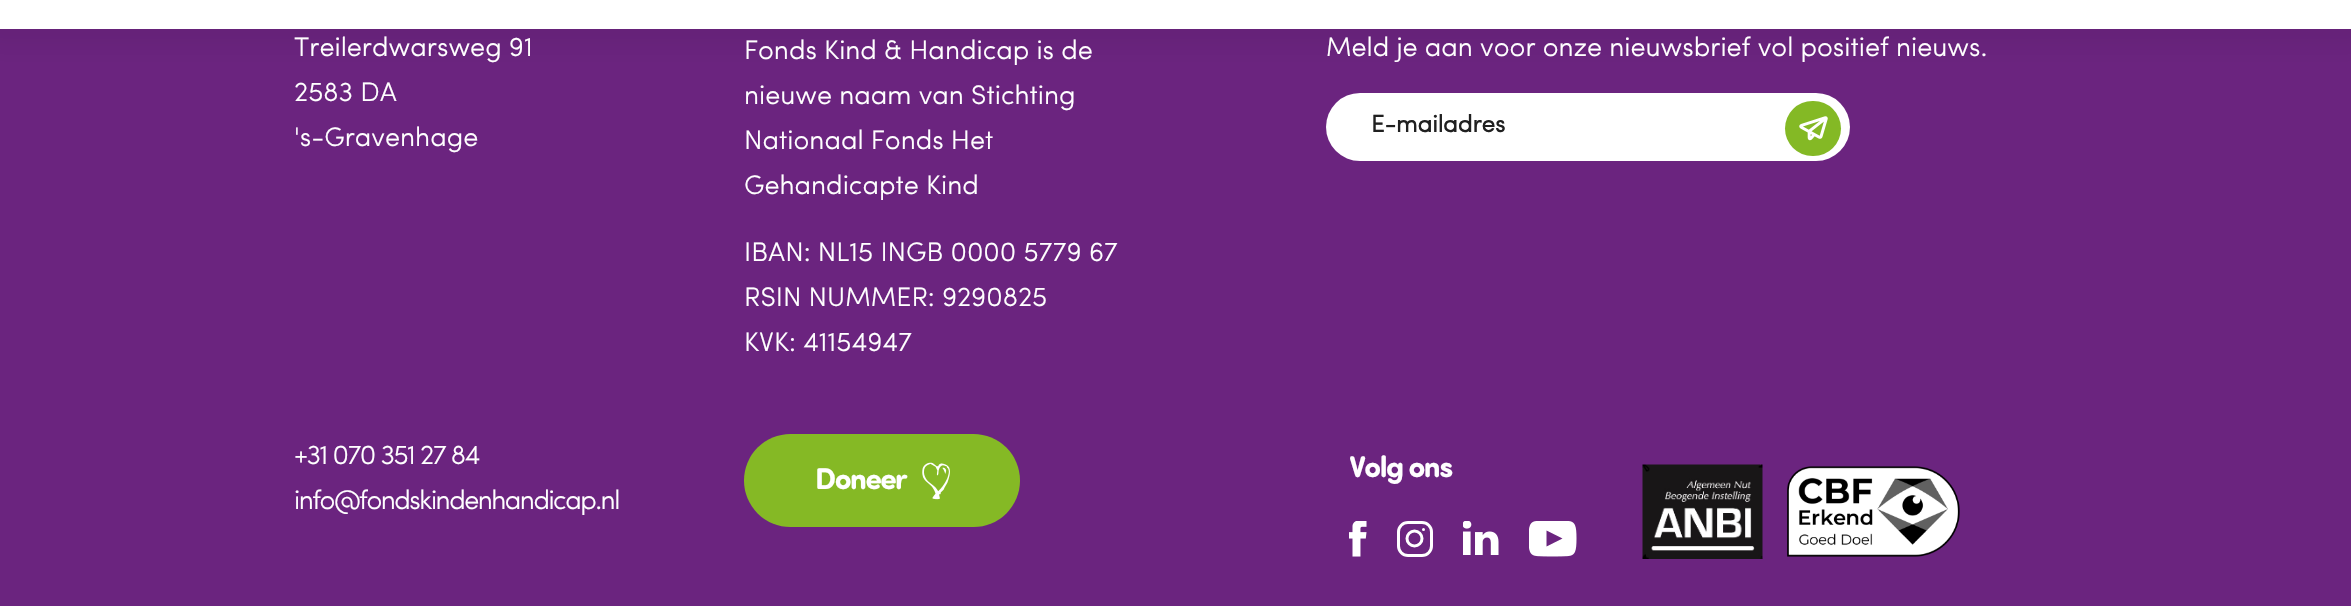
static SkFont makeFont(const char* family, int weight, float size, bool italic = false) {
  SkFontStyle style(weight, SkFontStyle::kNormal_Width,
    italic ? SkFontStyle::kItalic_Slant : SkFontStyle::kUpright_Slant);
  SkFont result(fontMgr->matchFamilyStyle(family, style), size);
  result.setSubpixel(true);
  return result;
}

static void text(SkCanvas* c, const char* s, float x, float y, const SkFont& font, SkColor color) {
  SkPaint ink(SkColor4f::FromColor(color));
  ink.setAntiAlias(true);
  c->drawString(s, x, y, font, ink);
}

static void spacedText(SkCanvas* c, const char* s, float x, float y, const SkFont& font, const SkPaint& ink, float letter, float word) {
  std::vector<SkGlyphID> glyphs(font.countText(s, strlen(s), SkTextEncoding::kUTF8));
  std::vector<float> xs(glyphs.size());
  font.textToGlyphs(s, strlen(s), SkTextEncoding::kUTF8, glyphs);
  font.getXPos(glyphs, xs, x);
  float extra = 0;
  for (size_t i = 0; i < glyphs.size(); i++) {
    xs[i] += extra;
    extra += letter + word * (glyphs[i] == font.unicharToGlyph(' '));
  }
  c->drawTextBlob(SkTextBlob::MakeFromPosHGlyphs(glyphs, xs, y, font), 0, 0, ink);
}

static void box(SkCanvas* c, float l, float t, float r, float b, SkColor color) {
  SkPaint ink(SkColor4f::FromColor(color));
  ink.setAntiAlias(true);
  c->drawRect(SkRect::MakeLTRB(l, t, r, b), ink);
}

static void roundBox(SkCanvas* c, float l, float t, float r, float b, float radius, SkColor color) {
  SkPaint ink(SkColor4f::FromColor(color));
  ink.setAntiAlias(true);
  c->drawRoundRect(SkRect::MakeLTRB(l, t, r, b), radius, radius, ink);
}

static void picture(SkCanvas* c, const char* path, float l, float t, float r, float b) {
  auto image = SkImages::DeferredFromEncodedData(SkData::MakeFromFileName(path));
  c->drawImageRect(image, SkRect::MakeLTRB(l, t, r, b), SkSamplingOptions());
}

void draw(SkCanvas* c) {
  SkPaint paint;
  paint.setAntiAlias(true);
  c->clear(0xff6b247f);
  paint.setColor(0x0d000000);
  paint.setMaskFilter(SkMaskFilter::MakeBlur(kNormal_SkBlurStyle, 10));
  c->drawRect(SkRect::MakeLTRB(-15, -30, 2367, 47), paint);
  paint.setMaskFilter(nullptr);
  box(c, 0, 0, 2351, 29, 0xffffffff);
  SkFont face1 = makeFont("Sofia", 300, 27);
  text(c, "Treilerdwarsweg 91", 294, 56, face1, 0xffffffff);
  text(c, "2583 DA", 294, 101, face1, 0xffffffff);
  text(c, "'s-Gravenhage", 294, 146, face1, 0xffffffff);
  text(c, "Fonds Kind & Handicap is de", 744, 59, face1, 0xffffffff);
  text(c, "nieuwe naam van Stichting", 744, 104, face1, 0xffffffff);
  text(c, "Nationaal Fonds Het", 744, 149, face1, 0xffffffff);
  text(c, "Gehandicapte Kind", 744, 194, face1, 0xffffffff);
  text(c, "IBAN: NL15 INGB 0000 5779 67", 744, 261, face1, 0xffffffff);
  text(c, "RSIN NUMMER: 9290825", 744, 306, face1, 0xffffffff);
  text(c, "KVK: 41154947", 744, 351, face1, 0xffffffff);
  text(c, "Meld je aan voor onze nieuwsbrief vol positief nieuws.", 1326, 56, face1, 0xffffffff);
  roundBox(c, 1326, 93, 1850, 161, 34, 0xffffffff);
  SkFont face2 = makeFont("Sofia", 700, 24);
  text(c, "E-mailadres", 1371, 132, face2, 0xff202020);
  roundBox(c, 1785, 101, 1841, 156, 27.5f, 0xff84b925);
  picture(c, "img_01.png", 1799, 116, 1828, 141);
  paint.setColor(0xffffffff);
  spacedText(c, "+31 070 351 27 84", 294, 464, face1, paint, -1.5f, 0);
  spacedText(c, "info@fondskindenhandicap.nl", 294, 509, face1, paint, -1.5f, 0);
  roundBox(c, 744, 434, 1020, 527, 46.5f, 0xff85b925);
  SkFont face3 = makeFont("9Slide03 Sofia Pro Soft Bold", 700, 30);
  spacedText(c, "Doneer", 815, 489, face3, paint, -1.5f, 0);
  picture(c, "img_02.png", 922, 462, 950, 500);
  spacedText(c, "Volg ons", 1349, 477, face3, paint, -1.5f, 0);
  picture(c, "img_03.png", 1642, 464, 1763, 559);
  picture(c, "img_04.png", 1787, 466, 1960, 557);
  picture(c, "img_05.png", 1349, 521, 1367, 557);
  c->drawCircle(1423.5f, 529.5f, 1.5f, paint);
  paint.setStyle(SkPaint::kStroke_Style);
  paint.setStrokeWidth(3);
  c->drawCircle(1414.5f, 538.5f, 7.5f, paint);
  c->drawRoundRect(SkRect::MakeLTRB(1398.5f, 522.5f, 1431.5f, 555.5f), 9.5f, 9.5f, paint);
  picture(c, "img_06.png", 1463, 521, 1499, 555);
  picture(c, "img_07.png", 1529, 521, 1577, 557);
}
